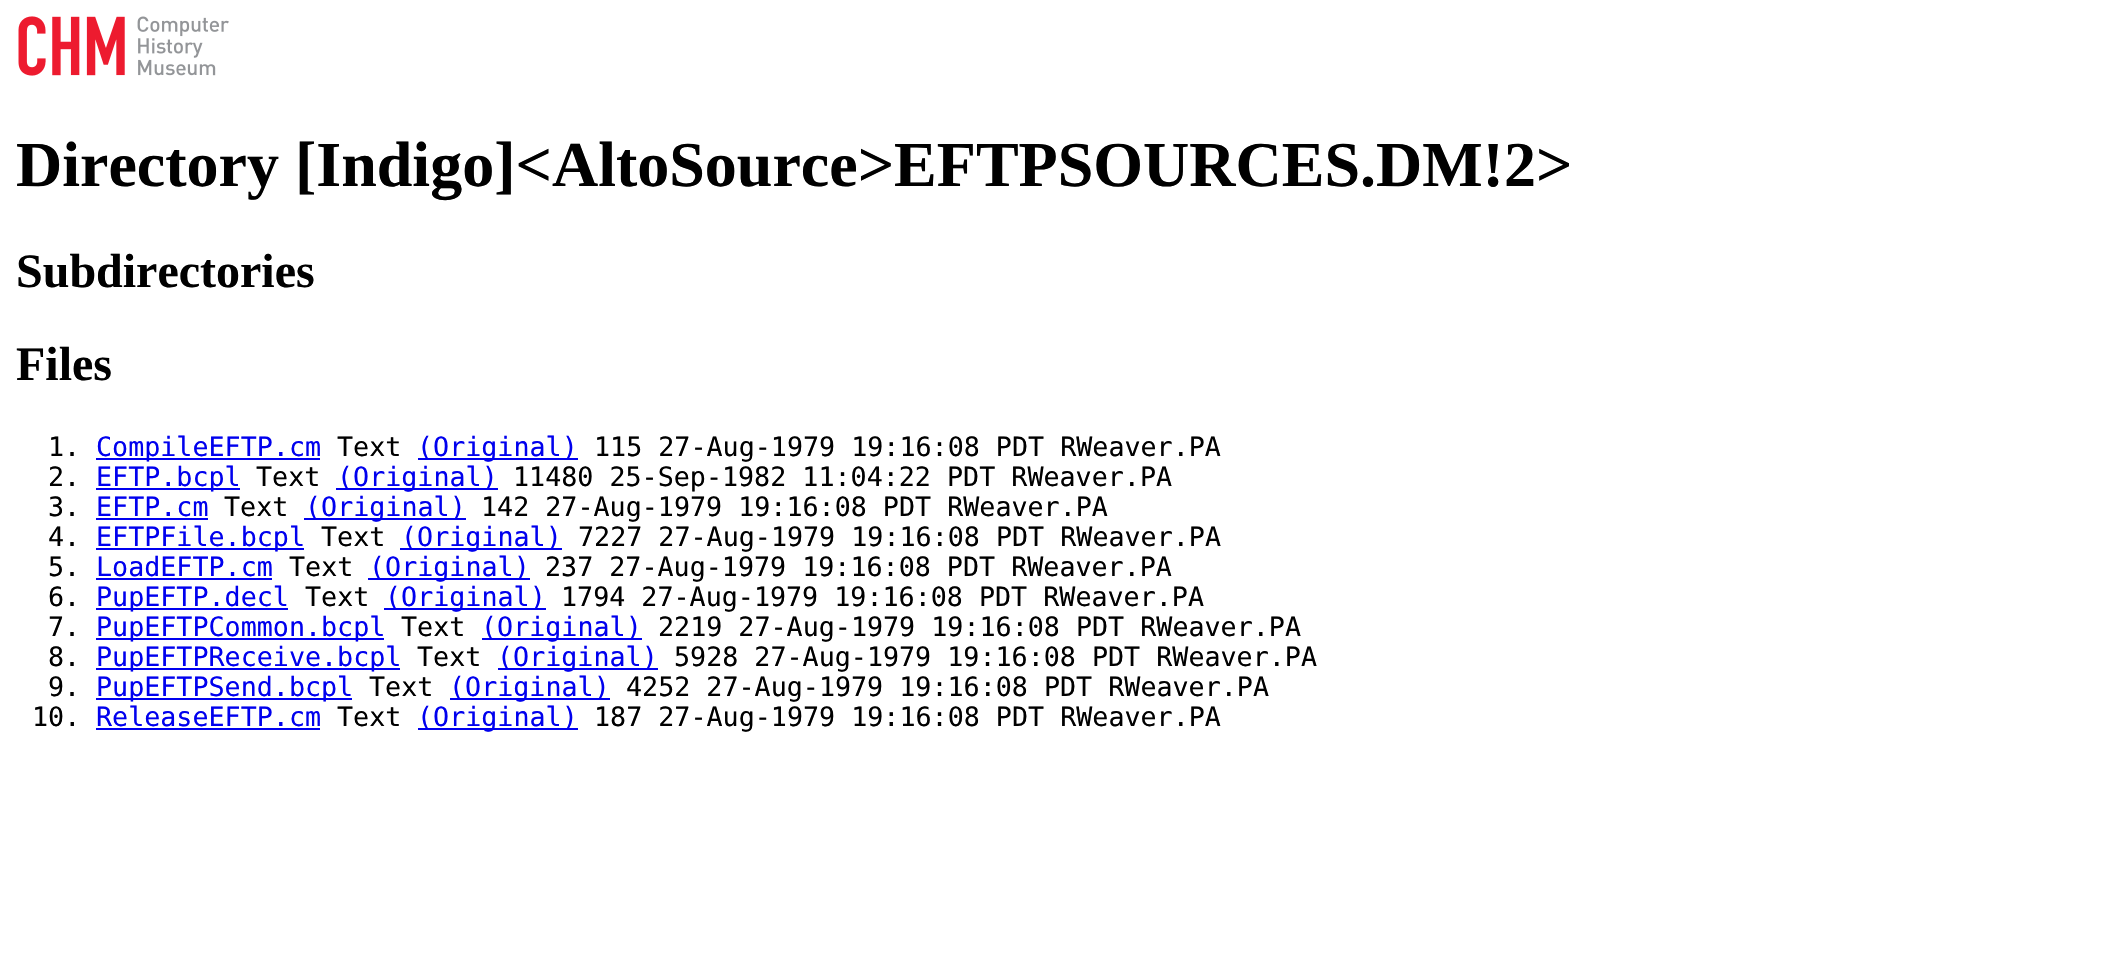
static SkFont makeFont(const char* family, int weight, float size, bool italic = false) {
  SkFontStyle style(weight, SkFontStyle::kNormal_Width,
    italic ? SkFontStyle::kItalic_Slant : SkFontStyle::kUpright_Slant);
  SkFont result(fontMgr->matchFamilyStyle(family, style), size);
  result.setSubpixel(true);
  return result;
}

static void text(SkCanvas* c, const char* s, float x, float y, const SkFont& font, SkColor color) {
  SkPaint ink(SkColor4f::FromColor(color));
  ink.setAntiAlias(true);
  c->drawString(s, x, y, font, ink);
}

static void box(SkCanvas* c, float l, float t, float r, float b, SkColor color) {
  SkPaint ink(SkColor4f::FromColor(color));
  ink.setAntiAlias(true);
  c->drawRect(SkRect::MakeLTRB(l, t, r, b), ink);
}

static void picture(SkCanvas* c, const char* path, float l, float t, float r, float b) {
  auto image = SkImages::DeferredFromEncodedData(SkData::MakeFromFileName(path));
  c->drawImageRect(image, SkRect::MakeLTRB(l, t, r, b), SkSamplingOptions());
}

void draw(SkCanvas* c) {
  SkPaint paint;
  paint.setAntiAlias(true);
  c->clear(0xffffffff);
  picture(c, "img_01.png", 18, 16, 229, 76);
  SkFont face1 = makeFont("Liberation Serif", 700, 64);
  text(c, "Directory [Indigo]<AltoSource>EFTPSOURCES.DM!2>", 16, 186, face1, 0xff000000);
  SkFont face2 = makeFont("Liberation Serif", 700, 48);
  text(c, "Subdirectories", 16, 287, face2, 0xff000000);
  text(c, "Files", 16, 380, face2, 0xff000000);
  SkFont face3 = makeFont("DejaVu Sans Mono", 400, 26.7f);
  text(c, "1.", 48, 456, face3, 0xff000000);
  box(c, 96, 458, 320, 460, 0xff0000ee);
  text(c, "CompileEFTP.cm", 96, 456, face3, 0xff0000ee);
  text(c, "Text", 337, 456, face3, 0xff000000);
  box(c, 418, 458, 578, 460, 0xff0000ee);
  text(c, "(Original)", 417, 456, face3, 0xff0000ee);
  text(c, "115 27-Aug-1979 19:16:08 PDT RWeaver.PA", 594, 456, face3, 0xff000000);
  text(c, "2.", 48, 486, face3, 0xff000000);
  box(c, 96, 488, 240, 490, 0xff0000ee);
  text(c, "EFTP.bcpl", 96, 486, face3, 0xff0000ee);
  text(c, "Text", 256, 486, face3, 0xff000000);
  box(c, 336, 488, 498, 490, 0xff0000ee);
  text(c, "(Original)", 337, 486, face3, 0xff0000ee);
  text(c, "11480 25-Sep-1982 11:04:22 PDT RWeaver.PA", 513, 486, face3, 0xff000000);
  text(c, "3.", 48, 516, face3, 0xff000000);
  text(c, "EFTP.cm", 96, 516, face3, 0xff0000ee);
  box(c, 96, 518, 208, 520, 0xff0000ee);
  text(c, "Text", 224, 516, face3, 0xff000000);
  box(c, 304, 518, 466, 520, 0xff0000ee);
  text(c, "(Original)", 305, 516, face3, 0xff0000ee);
  text(c, "142 27-Aug-1979 19:16:08 PDT RWeaver.PA", 481, 516, face3, 0xff000000);
  text(c, "4.", 48, 546, face3, 0xff000000);
  box(c, 96, 548, 304, 550, 0xff0000ee);
  text(c, "EFTPFile.bcpl", 96, 546, face3, 0xff0000ee);
  text(c, "Text", 321, 546, face3, 0xff000000);
  box(c, 400, 548, 562, 550, 0xff0000ee);
  text(c, "(Original)", 401, 546, face3, 0xff0000ee);
  text(c, "7227 27-Aug-1979 19:16:08 PDT RWeaver.PA", 578, 546, face3, 0xff000000);
  text(c, "5.", 48, 576, face3, 0xff000000);
  text(c, "LoadEFTP.cm", 96, 576, face3, 0xff0000ee);
  box(c, 96, 578, 272, 580, 0xff0000ee);
  text(c, "Text", 289, 576, face3, 0xff000000);
  box(c, 368, 578, 530, 580, 0xff0000ee);
  text(c, "(Original)", 369, 576, face3, 0xff0000ee);
  text(c, "237 27-Aug-1979 19:16:08 PDT RWeaver.PA", 545, 576, face3, 0xff000000);
  text(c, "6.", 48, 606, face3, 0xff000000);
  box(c, 96, 608, 288, 610, 0xff0000ee);
  text(c, "PupEFTP.decl", 96, 606, face3, 0xff0000ee);
  text(c, "Text", 305, 606, face3, 0xff000000);
  box(c, 384, 608, 546, 610, 0xff0000ee);
  text(c, "(Original)", 385, 606, face3, 0xff0000ee);
  text(c, "1794 27-Aug-1979 19:16:08 PDT RWeaver.PA", 561, 606, face3, 0xff000000);
  text(c, "7.", 48, 636, face3, 0xff000000);
  box(c, 96, 638, 384, 640, 0xff0000ee);
  text(c, "PupEFTPCommon.bcpl", 96, 636, face3, 0xff0000ee);
  text(c, "Text", 401, 636, face3, 0xff000000);
  box(c, 482, 638, 642, 640, 0xff0000ee);
  text(c, "(Original)", 481, 636, face3, 0xff0000ee);
  text(c, "2219 27-Aug-1979 19:16:08 PDT RWeaver.PA", 658, 636, face3, 0xff000000);
  text(c, "8.", 48, 666, face3, 0xff000000);
  box(c, 96, 668, 400, 670, 0xff0000ee);
  text(c, "PupEFTPReceive.bcpl", 96, 666, face3, 0xff0000ee);
  text(c, "Text", 417, 666, face3, 0xff000000);
  box(c, 498, 668, 658, 670, 0xff0000ee);
  text(c, "(Original)", 497, 666, face3, 0xff0000ee);
  text(c, "5928 27-Aug-1979 19:16:08 PDT RWeaver.PA", 674, 666, face3, 0xff000000);
  text(c, "9.", 48, 696, face3, 0xff000000);
  box(c, 96, 698, 352, 700, 0xff0000ee);
  text(c, "PupEFTPSend.bcpl", 96, 696, face3, 0xff0000ee);
  text(c, "Text", 369, 696, face3, 0xff000000);
  box(c, 450, 698, 610, 700, 0xff0000ee);
  text(c, "(Original)", 449, 696, face3, 0xff0000ee);
  text(c, "4252 27-Aug-1979 19:16:08 PDT RWeaver.PA", 626, 696, face3, 0xff000000);
  text(c, "10.", 32, 726, face3, 0xff000000);
  text(c, "ReleaseEFTP.cm", 96, 726, face3, 0xff0000ee);
  box(c, 96, 728, 320, 730, 0xff0000ee);
  text(c, "Text", 337, 726, face3, 0xff000000);
  box(c, 418, 728, 578, 730, 0xff0000ee);
  text(c, "(Original)", 417, 726, face3, 0xff0000ee);
  text(c, "187 27-Aug-1979 19:16:08 PDT RWeaver.PA", 594, 726, face3, 0xff000000);
}
